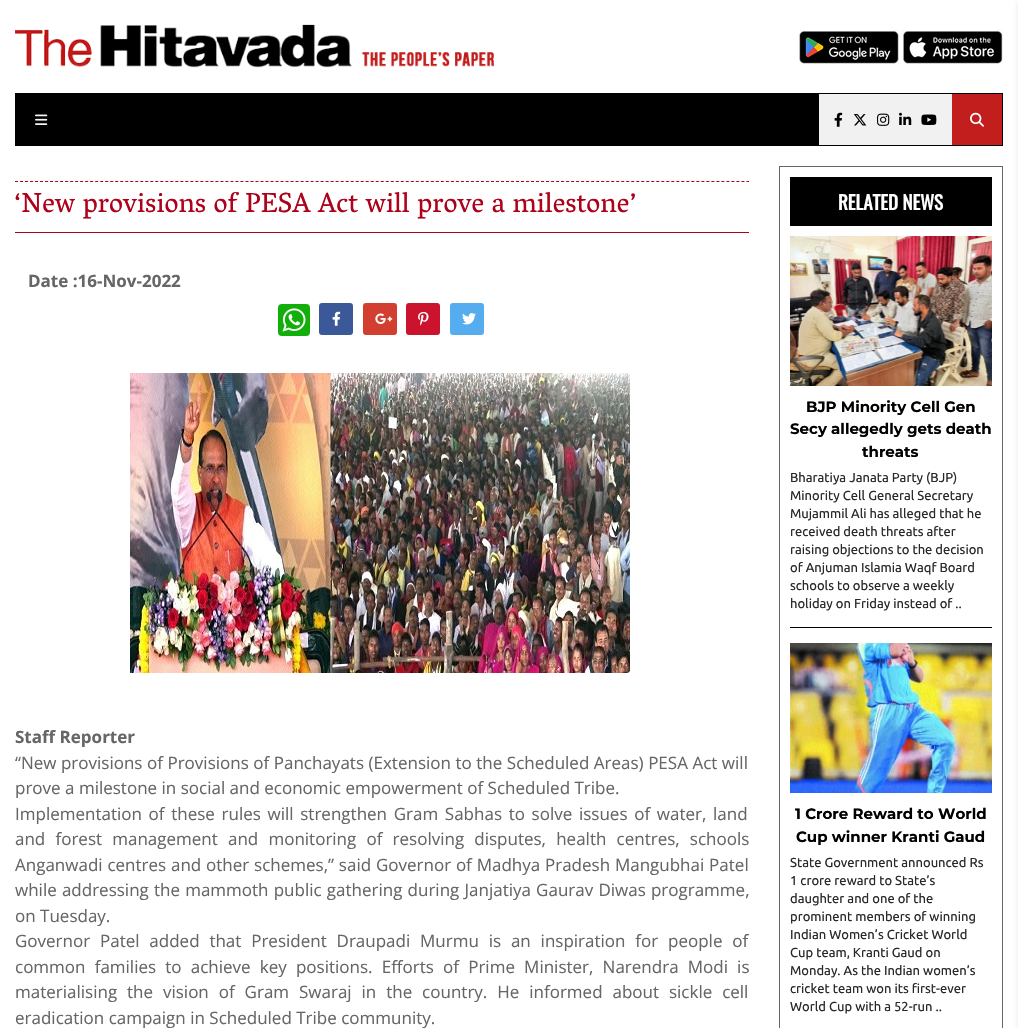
static SkFont makeFont(const char* family, int weight, float size, bool italic = false) {
  SkFontStyle style(weight, SkFontStyle::kNormal_Width,
    italic ? SkFontStyle::kItalic_Slant : SkFontStyle::kUpright_Slant);
  SkFont result(fontMgr->matchFamilyStyle(family, style), size);
  result.setSubpixel(true);
  return result;
}

static void text(SkCanvas* c, const char* s, float x, float y, const SkFont& font, SkColor color) {
  SkPaint ink(SkColor4f::FromColor(color));
  ink.setAntiAlias(true);
  c->drawString(s, x, y, font, ink);
}

static void spacedText(SkCanvas* c, const char* s, float x, float y, const SkFont& font, const SkPaint& ink, float letter, float word) {
  std::vector<SkGlyphID> glyphs(font.countText(s, strlen(s), SkTextEncoding::kUTF8));
  std::vector<float> xs(glyphs.size());
  font.textToGlyphs(s, strlen(s), SkTextEncoding::kUTF8, glyphs);
  font.getXPos(glyphs, xs, x);
  float extra = 0;
  for (size_t i = 0; i < glyphs.size(); i++) {
    xs[i] += extra;
    extra += letter + word * (glyphs[i] == font.unicharToGlyph(' '));
  }
  c->drawTextBlob(SkTextBlob::MakeFromPosHGlyphs(glyphs, xs, y, font), 0, 0, ink);
}

static void box(SkCanvas* c, float l, float t, float r, float b, SkColor color) {
  SkPaint ink(SkColor4f::FromColor(color));
  ink.setAntiAlias(true);
  c->drawRect(SkRect::MakeLTRB(l, t, r, b), ink);
}

static void roundBox(SkCanvas* c, float l, float t, float r, float b, float radius, SkColor color) {
  SkPaint ink(SkColor4f::FromColor(color));
  ink.setAntiAlias(true);
  c->drawRoundRect(SkRect::MakeLTRB(l, t, r, b), radius, radius, ink);
}

static void picture(SkCanvas* c, const char* path, float l, float t, float r, float b) {
  auto image = SkImages::DeferredFromEncodedData(SkData::MakeFromFileName(path));
  c->drawImageRect(image, SkRect::MakeLTRB(l, t, r, b), SkSamplingOptions());
}

void draw(SkCanvas* c) {
  SkPaint paint;
  paint.setAntiAlias(true);
  c->clear(0xffffffff);
  paint.setStyle(SkPaint::kStroke_Style);
  paint.setStrokeWidth(1);
  paint.setColor(0xff000000);
  c->drawRect(SkRect::MakeLTRB(15.5f, 93.5f, 1002.5f, 145.5f), paint);
  box(c, 16, 94, 819, 145, 0xff000000);
  picture(c, "img_01.png", 35, 114, 48, 125);
  box(c, 819, 94, 952, 145, 0xfff1f1f1);
  picture(c, "img_02.png", 834, 112, 843, 127);
  picture(c, "img_03.png", 853, 114, 867, 126);
  picture(c, "img_04.png", 877, 113, 890, 126);
  picture(c, "img_05.png", 899, 112, 912, 125);
  picture(c, "img_06.png", 921, 114, 937, 125);
  box(c, 952, 94, 1002, 145, 0xffc21e1d);
  picture(c, "img_07.png", 970, 112, 984, 127);
  paint.setStyle(SkPaint::kFill_Style);
  paint.setColor(0x1a000000);
  paint.setMaskFilter(SkMaskFilter::MakeBlur(kNormal_SkBlurStyle, 2));
  c->drawRect(SkRect::MakeLTRB(1018, 2, 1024, 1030), paint);
  paint.setMaskFilter(nullptr);
  picture(c, "img_08.png", 15, 24, 494, 68);
  picture(c, "img_09.png", 799, 30, 899, 64);
  picture(c, "img_10.png", 903, 30, 1003, 64);
  paint.setStyle(SkPaint::kStroke_Style);
  paint.setColor(0xffae011a);
  paint.setPathEffect(SkDashPathEffect::Make({{3, 2.01f}}, 0));
  c->drawPath(SkPathBuilder().moveTo(15, 181.5f).lineTo(749, 181.5f).detach(), paint);
  paint.setPathEffect(nullptr);
  box(c, 15, 232, 749, 233, 0xffae011a);
  SkFont face1 = makeFont("Vesper Libre", 400, 28);
  text(c, "‘New provisions of PESA Act will prove a milestone’", 15, 212, face1, 0xffae011a);
  SkFont face2 = makeFont("Open Sans", 700, 17);
  text(c, "Date :16-Nov-2022", 28, 287, face2, 0xff666666);
  roundBox(c, 278, 304, 310, 336, 4, 0xff12af0a);
  picture(c, "img_11.png", 282, 308, 306, 332);
  roundBox(c, 319, 303, 353, 335, 3, 0xff3b5998);
  picture(c, "img_12.png", 332, 311, 341, 326);
  roundBox(c, 363, 303, 397, 335, 3, 0xffd23e30);
  picture(c, "img_13.png", 375, 313, 393, 324);
  roundBox(c, 406, 303, 440, 335, 3, 0xffcb132d);
  picture(c, "img_14.png", 418, 311, 429, 326);
  roundBox(c, 450, 303, 484, 335, 3, 0xff55acee);
  picture(c, "img_15.png", 462, 313, 476, 325);
  picture(c, "img_16.png", 130, 373, 630, 673);
  text(c, "Staff Reporter", 15, 743, face2, 0xff666666);
  SkFont face3 = makeFont("Open Sans", 400, 17);
  paint.setStyle(SkPaint::kFill_Style);
  paint.setColor(0xff666666);
  spacedText(c, "“New provisions of Provisions of Panchayats (Extension to the Scheduled Areas) PESA Act will", 15, 769, face3, paint, 0, 0.1f);
  text(c, "prove a milestone in social and economic empowerment of Scheduled Tribe.", 15, 794, face3, 0xff666666);
  spacedText(c, "Implementation of these rules will strengthen Gram Sabhas to solve issues of water, land", 15, 820, face3, paint, 0, 2.25f);
  spacedText(c, "and forest management and monitoring of resolving disputes, health centres, schools", 15, 845, face3, paint, 0, 5.75f);
  spacedText(c, "Anganwadi centres and other schemes,” said Governor of Madhya Pradesh Mangubhai Patel", 15, 871, face3, paint, 0, 0.4f);
  spacedText(c, "while addressing the mammoth public gathering during Janjatiya Gaurav Diwas programme,", 15, 896, face3, paint, 0, 0.75f);
  text(c, "on Tuesday.", 15, 922, face3, 0xff666666);
  spacedText(c, "Governor Patel added that President Draupadi Murmu is an inspiration for people of", 15, 947, face3, paint, 0, 5.4f);
  spacedText(c, "common families to achieve key positions. Efforts of Prime Minister, Narendra Modi is", 15, 973, face3, paint, 0, 4.75f);
  spacedText(c, "materialising the vision of Gram Swaraj in the country. He informed about sickle cell", 15, 998, face3, paint, 0, 5.5f);
  text(c, "eradication campaign in Scheduled Tribe community.", 15, 1024, face3, 0xff666666);
  paint.setStyle(SkPaint::kStroke_Style);
  c->drawRect(SkRect::MakeLTRB(779.5f, 166.5f, 1002.5f, 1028.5f), paint);
  box(c, 790, 177, 992, 226, 0xff000000);
  SkFont face4 = makeFont("Oswald", 700, 19);
  text(c, "RELATED NEWS", 838, 210, face4, 0xffffffff);
  box(c, 790, 627, 992, 628, 0xff000000);
  picture(c, "img_17.png", 790, 236, 992, 386);
  SkFont face5 = makeFont("Montserrat", 700, 15);
  text(c, "BJP Minority Cell Gen", 806, 412, face5, 0xff000000);
  text(c, "Secy allegedly gets death", 790, 434, face5, 0xff000000);
  text(c, "threats", 862, 457, face5, 0xff000000);
  SkFont face6 = makeFont("Ubuntu", 400, 13);
  text(c, "Bharatiya Janata Party (BJP)", 790, 482, face6, 0xff292929);
  text(c, "Minority Cell General Secretary", 790, 500, face6, 0xff292929);
  text(c, "Mujammil Ali has alleged that he", 790, 518, face6, 0xff292929);
  text(c, "received death threats after", 790, 536, face6, 0xff292929);
  text(c, "raising objections to the decision", 790, 554, face6, 0xff292929);
  text(c, "of Anjuman Islamia Waqf Board", 790, 572, face6, 0xff292929);
  text(c, "schools to observe a weekly", 790, 590, face6, 0xff292929);
  text(c, "holiday on Friday instead of ..", 790, 608, face6, 0xff292929);
  picture(c, "img_18.png", 790, 643, 992, 793);
  text(c, "1 Crore Reward to World", 795, 819, face5, 0xff000000);
  text(c, "Cup winner Kranti Gaud", 796, 842, face5, 0xff000000);
  text(c, "State Government announced Rs", 790, 867, face6, 0xff292929);
  text(c, "1 crore reward to State’s", 790, 885, face6, 0xff292929);
  text(c, "daughter and one of the", 790, 903, face6, 0xff292929);
  text(c, "prominent members of winning", 790, 921, face6, 0xff292929);
  text(c, "Indian Women’s Cricket World", 790, 939, face6, 0xff292929);
  text(c, "Cup team, Kranti Gaud on", 790, 957, face6, 0xff292929);
  text(c, "Monday. As the Indian women’s", 790, 975, face6, 0xff292929);
  text(c, "cricket team won its first-ever", 790, 993, face6, 0xff292929);
  text(c, "World Cup with a 52-run ..", 790, 1011, face6, 0xff292929);
}
